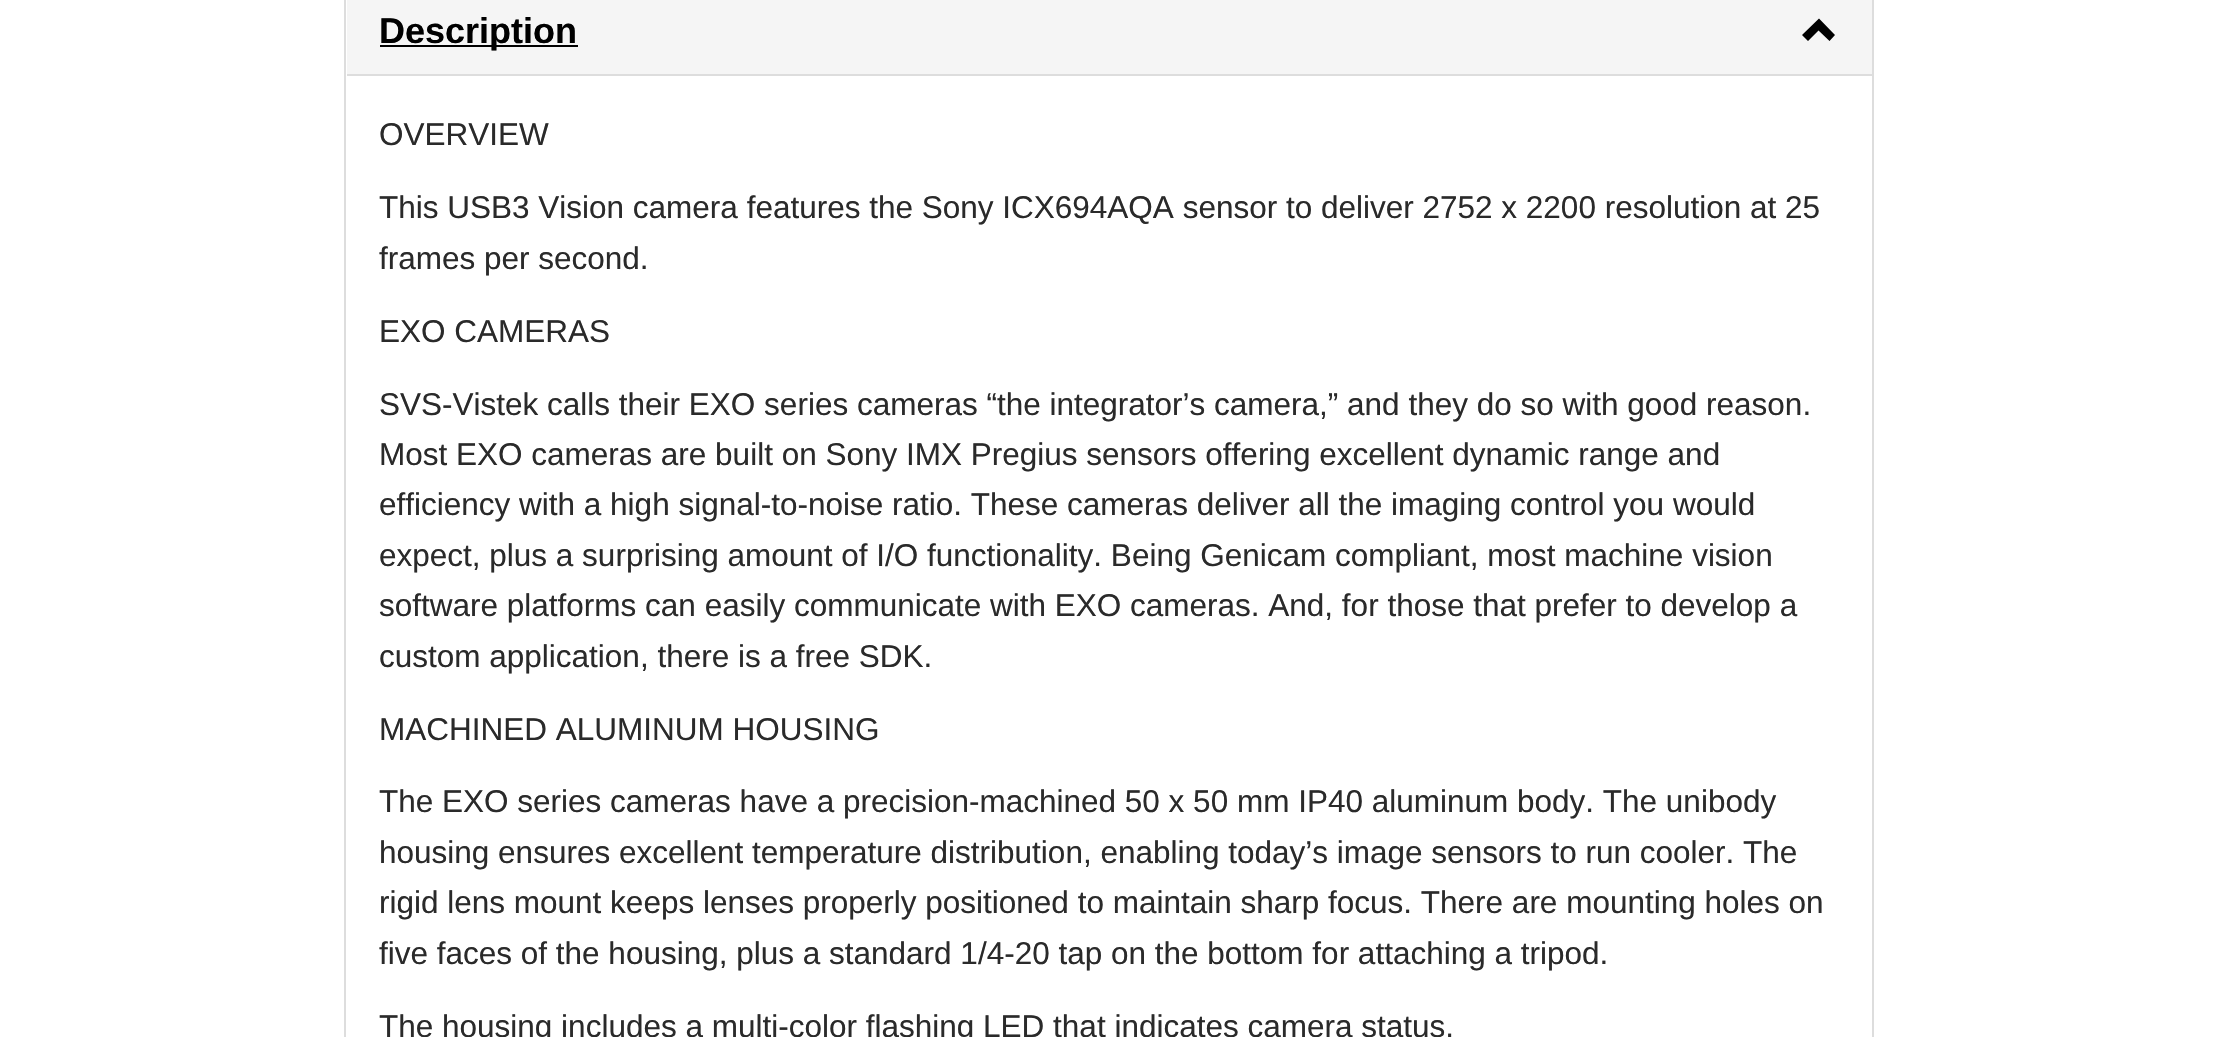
static SkFont makeFont(const char* family, int weight, float size, bool italic = false) {
  SkFontStyle style(weight, SkFontStyle::kNormal_Width,
    italic ? SkFontStyle::kItalic_Slant : SkFontStyle::kUpright_Slant);
  SkFont result(fontMgr->matchFamilyStyle(family, style), size);
  result.setSubpixel(true);
  return result;
}

static void text(SkCanvas* c, const char* s, float x, float y, const SkFont& font, SkColor color) {
  SkPaint ink(SkColor4f::FromColor(color));
  ink.setAntiAlias(true);
  c->drawString(s, x, y, font, ink);
}

static void box(SkCanvas* c, float l, float t, float r, float b, SkColor color) {
  SkPaint ink(SkColor4f::FromColor(color));
  ink.setAntiAlias(true);
  c->drawRect(SkRect::MakeLTRB(l, t, r, b), ink);
}

void draw(SkCanvas* c) {
  SkPaint paint;
  paint.setAntiAlias(true);
  c->clear(0xffffffff);
  paint.setStyle(SkPaint::kStroke_Style);
  paint.setStrokeWidth(2);
  paint.setColor(0xffdddddd);
  c->drawRect(SkRect::MakeLTRB(345, -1, 1873, 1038), paint);
  box(c, 347, 0, 1872, 74, 0xfff5f5f5);
  box(c, 380, 45, 578, 47, 0xff000000);
  SkFont face1 = makeFont("Liberation Sans", 700, 36);
  text(c, "Description", 379, 43, face1, 0xff000000);
  paint.setStyle(SkPaint::kFill_Style);
  paint.setColor(0xff000000);
  c->drawPath(SkPathBuilder().moveTo(1835, 35).lineTo(1829.5f, 41).lineTo(1818.5f, 30.5f).lineTo(1808, 41).lineTo(1802, 35).lineTo(1819, 18.5f).close().detach(), paint);
  box(c, 347, 74, 1872, 76, 0xffdddddd);
  SkFont face2 = makeFont("Liberation Sans", 400, 31.5f);
  text(c, "OVERVIEW", 379, 145, face2, 0xff2a2a2a);
  text(c, "This USB3 Vision camera features the Sony ICX694AQA sensor to deliver 2752 x 2200 resolution at 25", 379, 218, face2, 0xff2a2a2a);
  text(c, "frames per second.", 379, 269, face2, 0xff2a2a2a);
  text(c, "EXO CAMERAS", 379, 342, face2, 0xff2a2a2a);
  text(c, "SVS-Vistek calls their EXO series cameras “the integrator’s camera,” and they do so with good reason.", 379, 415, face2, 0xff2a2a2a);
  text(c, "Most EXO cameras are built on Sony IMX Pregius sensors offering excellent dynamic range and", 379, 465, face2, 0xff2a2a2a);
  text(c, "efficiency with a high signal-to-noise ratio. These cameras deliver all the imaging control you would", 379, 515, face2, 0xff2a2a2a);
  text(c, "expect, plus a surprising amount of I/O functionality. Being Genicam compliant, most machine vision", 379, 566, face2, 0xff2a2a2a);
  text(c, "software platforms can easily communicate with EXO cameras. And, for those that prefer to develop a", 379, 616, face2, 0xff2a2a2a);
  text(c, "custom application, there is a free SDK.", 379, 667, face2, 0xff2a2a2a);
  text(c, "MACHINED ALUMINUM HOUSING", 379, 740, face2, 0xff2a2a2a);
  text(c, "The EXO series cameras have a precision-machined 50 x 50 mm IP40 aluminum body. The unibody", 379, 812, face2, 0xff2a2a2a);
  text(c, "housing ensures excellent temperature distribution, enabling today’s image sensors to run cooler. The", 379, 863, face2, 0xff2a2a2a);
  text(c, "rigid lens mount keeps lenses properly positioned to maintain sharp focus. There are mounting holes on", 379, 913, face2, 0xff2a2a2a);
  text(c, "five faces of the housing, plus a standard 1/4-20 tap on the bottom for attaching a tripod.", 379, 964, face2, 0xff2a2a2a);
  text(c, "The housing includes a multi-color flashing LED that indicates camera status.", 379, 1037, face2, 0xff2a2a2a);
}
